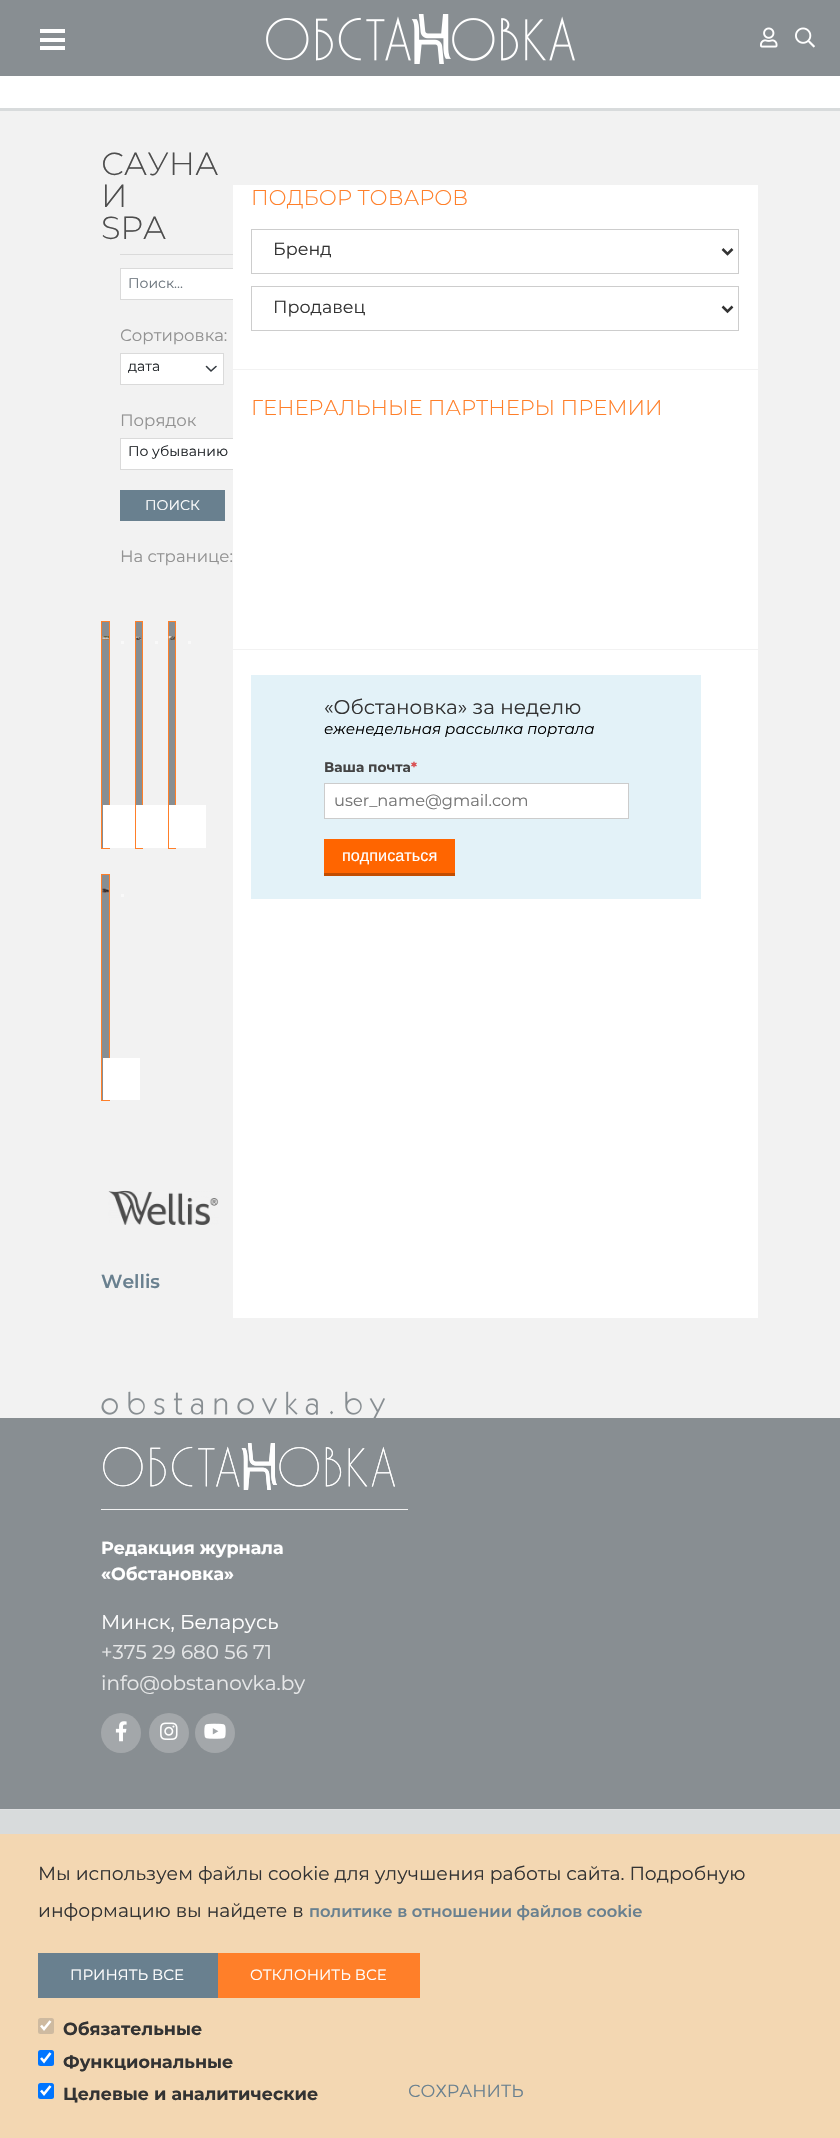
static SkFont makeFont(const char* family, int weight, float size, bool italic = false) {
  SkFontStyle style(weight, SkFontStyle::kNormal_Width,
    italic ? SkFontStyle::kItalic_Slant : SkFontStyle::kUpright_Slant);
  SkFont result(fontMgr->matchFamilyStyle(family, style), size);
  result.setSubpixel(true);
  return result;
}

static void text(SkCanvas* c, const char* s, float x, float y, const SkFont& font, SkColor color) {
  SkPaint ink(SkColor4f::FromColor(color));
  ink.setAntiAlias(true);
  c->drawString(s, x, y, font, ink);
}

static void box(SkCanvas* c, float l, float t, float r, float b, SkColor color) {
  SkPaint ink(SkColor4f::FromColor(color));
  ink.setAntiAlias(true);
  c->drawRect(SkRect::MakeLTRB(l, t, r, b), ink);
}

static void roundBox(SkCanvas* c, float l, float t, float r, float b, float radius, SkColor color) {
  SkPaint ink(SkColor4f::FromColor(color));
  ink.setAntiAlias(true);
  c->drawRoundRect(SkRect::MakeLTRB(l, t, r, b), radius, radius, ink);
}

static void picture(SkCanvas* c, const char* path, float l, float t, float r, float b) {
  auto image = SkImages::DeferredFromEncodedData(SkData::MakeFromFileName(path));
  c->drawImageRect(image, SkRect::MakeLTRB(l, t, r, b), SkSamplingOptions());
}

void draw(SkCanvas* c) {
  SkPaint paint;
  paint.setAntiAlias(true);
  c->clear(0xfff2f2f2);
  box(c, 0, 76, 840, 108, 0xffffffff);
  box(c, 0, 108, 840, 111, 0xffd8dbdc);
  box(c, 0, 0, 840, 76, 0xff888e92);
  box(c, 40, 29, 65, 33, 0xffffffff);
  box(c, 40, 38, 65, 42, 0xffffffff);
  box(c, 40, 46, 65, 50, 0xffffffff);
  picture(c, "img_01.png", 266, 14, 575, 64);
  picture(c, "img_02.png", 760, 27, 778, 48);
  picture(c, "img_03.png", 795, 27, 815, 48);
  SkFont face1 = makeFont("Montserrat", 300, 32);
  text(c, "САУНА", 101, 175, face1, 0xff4d4d4d);
  text(c, "И", 101, 207, face1, 0xff4d4d4d);
  text(c, "SPA", 101, 239, face1, 0xff4d4d4d);
  box(c, 120, 254, 233, 255, 0xffdadada);
  box(c, 121, 269, 233, 299, 0xffffffff);
  paint.setStyle(SkPaint::kStroke_Style);
  paint.setStrokeWidth(1);
  paint.setColor(0xffdadada);
  c->drawRect(SkRect::MakeLTRB(120.5f, 268.5f, 324.5f, 299.5f), paint);
  SkFont face2 = makeFont("Montserrat", 400, 14);
  text(c, "Поиск...", 128, 288, face2, 0xff6c757d);
  SkFont face3 = makeFont("Montserrat", 400, 16.5f);
  text(c, "Сортировка:", 120, 341, face3, 0xff929292);
  box(c, 121, 354, 223, 384, 0xffffffff);
  paint.setStrokeWidth(1.6f);
  paint.setStrokeCap(SkPaint::kRound_Cap);
  paint.setStrokeJoin(SkPaint::kRound_Join);
  paint.setColor(0xff343a40);
  c->drawPath(SkPathBuilder().moveTo(206.5f, 366.5f).lineTo(211, 371).lineTo(216, 366.5f).detach(), paint);
  paint.setStrokeWidth(1);
  paint.setStrokeCap(SkPaint::kButt_Cap);
  paint.setStrokeJoin(SkPaint::kMiter_Join);
  paint.setColor(0xffdadada);
  c->drawRect(SkRect::MakeLTRB(120.5f, 353.5f, 223.5f, 384.5f), paint);
  c->save();
  c->clipRect(SkRect::MakeLTRB(128, 358, 198, 376));
  text(c, "дата", 128, 371, face2, 0xff212529);
  c->restore();
  text(c, "Порядок", 120, 426, face3, 0xff929292);
  box(c, 121, 439, 233, 469, 0xffffffff);
  c->drawRect(SkRect::MakeLTRB(120.5f, 438.5f, 274.5f, 469.5f), paint);
  text(c, "По убыванию", 128, 456, face2, 0xff212529);
  box(c, 120, 490, 225, 521, 0xff69808f);
  text(c, "ПОИСК", 145, 510, face2, 0xffffffff);
  text(c, "На странице:", 120, 562, face3, 0xff929292);
  paint.setStyle(SkPaint::kFill_Style);
  paint.setColor(0xff888e92);
  c->drawRect(SkRect::MakeLTRB(101.5f, 621.5f, 109.5f, 848.5f), paint);
  paint.setStyle(SkPaint::kStroke_Style);
  paint.setColor(0xffff7f29);
  c->drawRect(SkRect::MakeLTRB(101.5f, 621.5f, 109.5f, 848.5f), paint);
  picture(c, "img_04.png", 102, 636, 109, 640);
  box(c, 121, 641, 124, 644, 0xfff9f9f9);
  box(c, 103, 805, 135, 848, 0xffffffff);
  box(c, 136, 621, 142, 805, 0xff888e92);
  c->drawRect(SkRect::MakeLTRB(135.5f, 621.5f, 142.5f, 848.5f), paint);
  picture(c, "img_05.png", 136, 636, 142, 640);
  box(c, 155, 641, 158, 644, 0xfff9f9f9);
  box(c, 136, 805, 168, 848, 0xffffffff);
  box(c, 169, 621, 175, 805, 0xff888e92);
  c->drawRect(SkRect::MakeLTRB(168.5f, 621.5f, 175.5f, 848.5f), paint);
  picture(c, "img_06.png", 168, 636, 175, 640);
  box(c, 188, 641, 191, 644, 0xfff9f9f9);
  box(c, 169, 805, 206, 848, 0xffffffff);
  paint.setStyle(SkPaint::kFill_Style);
  paint.setColor(0xff888e92);
  c->drawRect(SkRect::MakeLTRB(101.5f, 874.5f, 109.5f, 1100.5f), paint);
  paint.setStyle(SkPaint::kStroke_Style);
  paint.setColor(0xffff7f29);
  c->drawRect(SkRect::MakeLTRB(101.5f, 874.5f, 109.5f, 1100.5f), paint);
  picture(c, "img_07.png", 102, 888, 109, 893);
  box(c, 121, 894, 124, 897, 0xfff9f9f9);
  box(c, 103, 1058, 140, 1100, 0xffffffff);
  picture(c, "img_08.png", 108, 1190, 219, 1225);
  SkFont face4 = makeFont("Montserrat", 600, 18.75f);
  text(c, "Wellis", 101, 1288, face4, 0xff69808f);
  box(c, 233, 185, 758, 1318, 0xffffffff);
  box(c, 226, 369, 764, 370, 0xfff2f2f2);
  SkFont face5 = makeFont("Montserrat", 300, 21.25f);
  text(c, "ПОДБОР ТОВАРОВ", 251, 205, face5, 0xffff7f29);
  paint.setColor(0xffcdcdcd);
  c->drawRect(SkRect::MakeLTRB(251.5f, 229.5f, 738.5f, 273.5f), paint);
  paint.setStrokeWidth(2.5f);
  paint.setColor(0xff333333);
  c->drawPath(SkPathBuilder().moveTo(722.5f, 249).lineTo(727.5f, 254).lineTo(732.5f, 249).detach(), paint);
  SkFont face6 = makeFont("Montserrat", 400, 17.5f);
  text(c, "Бренд", 273, 255, face6, 0xff333333);
  paint.setStrokeWidth(1);
  paint.setColor(0xffcdcdcd);
  c->drawRect(SkRect::MakeLTRB(251.5f, 286.5f, 738.5f, 330.5f), paint);
  paint.setStrokeWidth(2.5f);
  paint.setColor(0xff333333);
  c->drawPath(SkPathBuilder().moveTo(722.5f, 306.5f).lineTo(727.5f, 311.5f).lineTo(732.5f, 306.5f).detach(), paint);
  text(c, "Продавец", 273, 313, face6, 0xff333333);
  box(c, 226, 649, 764, 650, 0xfff2f2f2);
  text(c, "ГЕНЕРАЛЬНЫЕ ПАРТНЕРЫ ПРЕМИИ", 251, 415, face5, 0xffff7f29);
  box(c, 251, 675, 701, 899, 0xffe3f2f8);
  SkFont face7 = makeFont("Montserrat", 400, 20);
  text(c, "«Обстановка» за неделю", 324, 714, face7, 0xff333333);
  SkFont face8 = makeFont("Montserrat", 400, 15, true);
  text(c, "еженедельная рассылка портала", 324, 734, face8, 0xff000000);
  SkFont face9 = makeFont("Montserrat", 700, 13.75f);
  text(c, "Ваша почта", 324, 772, face9, 0xff444444);
  text(c, "*", 411, 772, face9, 0xffd94b4d);
  paint.setStyle(SkPaint::kFill_Style);
  paint.setColor(0xffffffff);
  c->drawRect(SkRect::MakeLTRB(324.5f, 783.5f, 628.5f, 818.5f), paint);
  paint.setStyle(SkPaint::kStroke_Style);
  paint.setStrokeWidth(1);
  paint.setColor(0xffcccccc);
  c->drawRect(SkRect::MakeLTRB(324.5f, 783.5f, 628.5f, 818.5f), paint);
  SkFont face10 = makeFont("Montserrat", 400, 16.25f);
  text(c, "user_name@gmail.com", 334, 806, face10, 0xff757575);
  box(c, 324, 839, 455, 873, 0xffff6500);
  box(c, 324, 873, 455, 876, 0xffc24d00);
  SkFont face11 = makeFont("Liberation Sans", 400, 16.25f);
  text(c, "подписаться", 342, 861, face11, 0xffffffff);
  box(c, 0, 1418, 840, 1809, 0xff888e92);
  picture(c, "img_09.png", 101, 1391, 395, 1490);
  box(c, 101, 1509, 408, 1510, 0xfff2f2f2);
  SkFont face12 = makeFont("Montserrat", 700, 17.5f);
  text(c, "Редакция журнала", 101, 1554, face12, 0xffffffff);
  text(c, "«Обстановка»", 101, 1580, face12, 0xffffffff);
  text(c, "Минск, Беларусь", 101, 1629, face7, 0xffffffff);
  text(c, "+375 29 680 56 71", 101, 1659, face7, 0xffe7e8e9);
  text(c, "info@obstanovka.by", 101, 1690, face7, 0xffe7e8e9);
  paint.setStyle(SkPaint::kFill_Style);
  paint.setColor(0xffa3a7aa);
  c->drawCircle(121, 1733, 20, paint);
  picture(c, "img_10.png", 115, 1721, 127, 1742);
  c->drawCircle(169, 1733, 20, paint);
  picture(c, "img_11.png", 160, 1722, 178, 1740);
  c->drawCircle(215, 1733, 20, paint);
  picture(c, "img_12.png", 204, 1723, 226, 1739);
  box(c, 0, 1810, 840, 1834, 0xffd8dbdc);
  box(c, 0, 1809, 840, 1810, 0xffdee0e1);
  box(c, 0, 1834, 840, 2138, 0xfff3d7b2);
  SkFont face13 = makeFont("Montserrat", 400, 18.75f);
  text(c, "Мы используем файлы cookie для улучшения работы сайта. Подробную", 38, 1880, face13, 0xff333333);
  text(c, "информацию вы найдете в", 38, 1917, face13, 0xff333333);
  SkFont face14 = makeFont("Montserrat", 600, 16.25f);
  text(c, "политике в отношении файлов cookie", 309, 1917, face14, 0xff69808f);
  box(c, 38, 1953, 218, 1998, 0xff69808f);
  SkFont face15 = makeFont("Montserrat", 400, 15);
  text(c, "ПРИНЯТЬ ВСЕ", 70, 1980, face15, 0xffffffff);
  box(c, 218, 1953, 420, 1998, 0xffff7f29);
  text(c, "ОТКЛОНИТЬ ВСЕ", 250, 1980, face15, 0xffffffff);
  roundBox(c, 38, 2018, 54, 2034, 2.5f, 0xffcebaa0);
  paint.setStyle(SkPaint::kStroke_Style);
  paint.setStrokeWidth(2.6f);
  paint.setColor(0xffffffff);
  c->drawPath(SkPathBuilder().moveTo(41, 2025.5f).lineTo(44, 2029).lineTo(50.5f, 2021).detach(), paint);
  text(c, "Обязательные", 63, 2035, face12, 0xff333333);
  roundBox(c, 38, 2050, 54, 2066, 2.5f, 0xff0075ff);
  c->drawPath(SkPathBuilder().moveTo(41, 2058).lineTo(44, 2061.5f).lineTo(50.5f, 2053).detach(), paint);
  text(c, "Функциональные", 63, 2068, face12, 0xff333333);
  roundBox(c, 38, 2083, 54, 2099, 2.5f, 0xff0075ff);
  c->drawPath(SkPathBuilder().moveTo(41, 2090.5f).lineTo(44, 2094).lineTo(50.5f, 2086).detach(), paint);
  text(c, "Целевые и аналитические", 63, 2100, face12, 0xff333333);
  text(c, "СОХРАНИТЬ", 408, 2097, face6, 0xff69808f);
}
